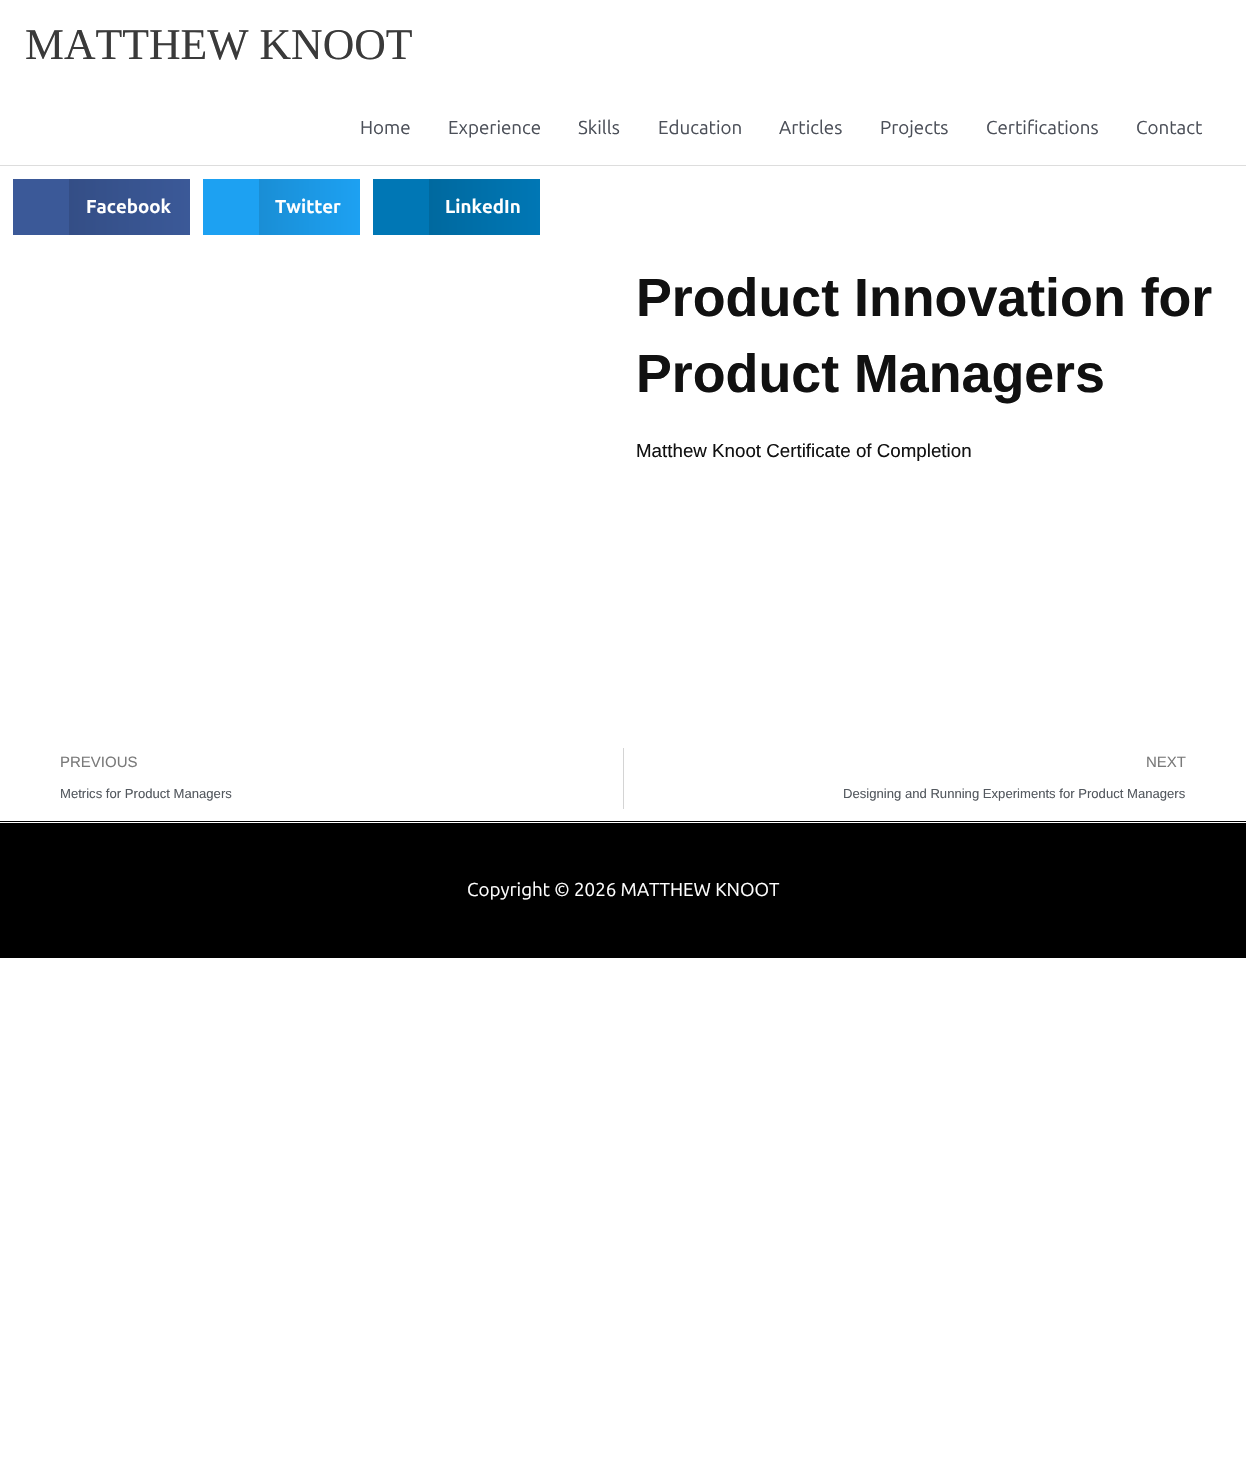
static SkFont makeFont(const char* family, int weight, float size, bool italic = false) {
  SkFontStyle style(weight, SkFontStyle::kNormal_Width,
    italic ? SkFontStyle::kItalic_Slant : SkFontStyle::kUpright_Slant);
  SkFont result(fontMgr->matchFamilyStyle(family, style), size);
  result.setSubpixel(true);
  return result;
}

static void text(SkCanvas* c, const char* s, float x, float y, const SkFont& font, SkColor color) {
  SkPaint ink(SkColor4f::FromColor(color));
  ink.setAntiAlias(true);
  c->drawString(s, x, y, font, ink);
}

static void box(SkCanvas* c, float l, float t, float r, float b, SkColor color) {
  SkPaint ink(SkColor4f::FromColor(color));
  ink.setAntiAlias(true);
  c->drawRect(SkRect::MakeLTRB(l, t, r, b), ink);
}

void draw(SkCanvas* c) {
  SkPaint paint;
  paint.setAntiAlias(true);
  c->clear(0xffffffff);
  box(c, 0, 165, 1246, 166, 0xffdddddd);
  SkFont face1 = makeFont("Liberation Serif", 400, 43.75f);
  text(c, "MATTHEW KNOOT", 25, 59, face1, 0xff3a3a3a);
  SkFont face2 = makeFont("Ubuntu", 400, 18.75f);
  text(c, "Home", 360, 134, face2, 0xff4b4f58);
  text(c, "Experience", 448, 134, face2, 0xff4b4f58);
  text(c, "Skills", 578, 134, face2, 0xff4b4f58);
  text(c, "Education", 658, 134, face2, 0xff4b4f58);
  text(c, "Articles", 779, 134, face2, 0xff4b4f58);
  text(c, "Projects", 880, 134, face2, 0xff4b4f58);
  text(c, "Certifications", 986, 134, face2, 0xff4b4f58);
  text(c, "Contact", 1136, 134, face2, 0xff4b4f58);
  box(c, 13, 179, 69, 235, 0xff3b5998);
  {
    const SkColor colors[] = {0xff344e86, 0xff3b5998};
    const float stops[] = {0, 1};
    const SkPoint ends[] = {{69, 207}, {190, 207}};
    paint.setShader(SkGradientShader::MakeLinear(ends, colors, stops, 2, SkTileMode::kClamp));
    paint.setAlpha(255);
  }
  c->drawRect(SkRect::MakeLTRB(69, 179, 190, 235), paint);
  SkFont face3 = makeFont("Ubuntu", 700, 18.75f);
  text(c, "Facebook", 86, 213, face3, 0xffffffff);
  box(c, 203, 179, 259, 235, 0xff1da1f2);
  {
    const SkColor colors[] = {0xff1a8ed5, 0xff1da1f2};
    const float stops[] = {0, 1};
    const SkPoint ends[] = {{259, 207}, {360, 207}};
    paint.setShader(SkGradientShader::MakeLinear(ends, colors, stops, 2, SkTileMode::kClamp));
    paint.setAlpha(255);
  }
  c->drawRect(SkRect::MakeLTRB(259, 179, 360, 235), paint);
  text(c, "Twitter", 275, 213, face3, 0xffffffff);
  box(c, 373, 179, 429, 235, 0xff0077b5);
  {
    const SkColor colors[] = {0xff00699f, 0xff0077b5};
    const float stops[] = {0, 1};
    const SkPoint ends[] = {{429, 207}, {540, 207}};
    paint.setShader(SkGradientShader::MakeLinear(ends, colors, stops, 2, SkTileMode::kClamp));
    paint.setAlpha(255);
  }
  c->drawRect(SkRect::MakeLTRB(429, 179, 540, 235), paint);
  text(c, "LinkedIn", 445, 213, face3, 0xffffffff);
  SkFont face4 = makeFont("Liberation Sans", 700, 53.75f);
  text(c, "Product Innovation for", 636, 316, face4, 0xff111111);
  text(c, "Product Managers", 636, 392, face4, 0xff111111);
  SkFont face5 = makeFont("Liberation Sans", 400, 18.75f);
  text(c, "Matthew Knoot Certificate of Completion", 636, 457, face5, 0xff111111);
  SkFont face6 = makeFont("Liberation Sans", 400, 15);
  text(c, "PREVIOUS", 60, 767, face6, 0xff7a7a7a);
  SkFont face7 = makeFont("Liberation Sans", 400, 13.1f);
  text(c, "Metrics for Product Managers", 60, 798, face7, 0xff54595f);
  box(c, 623, 748, 624, 809, 0xffd4d4d4);
  text(c, "NEXT", 1146, 767, face6, 0xff7a7a7a);
  text(c, "Designing and Running Experiments for Product Managers", 843, 798, face7, 0xff54595f);
  box(c, 0, 821, 1246, 822, 0xff000000);
  box(c, 0, 823, 1246, 958, 0xff000000);
  text(c, "Copyright © 2026 MATTHEW KNOOT", 467, 896, face2, 0xffffffff);
}
